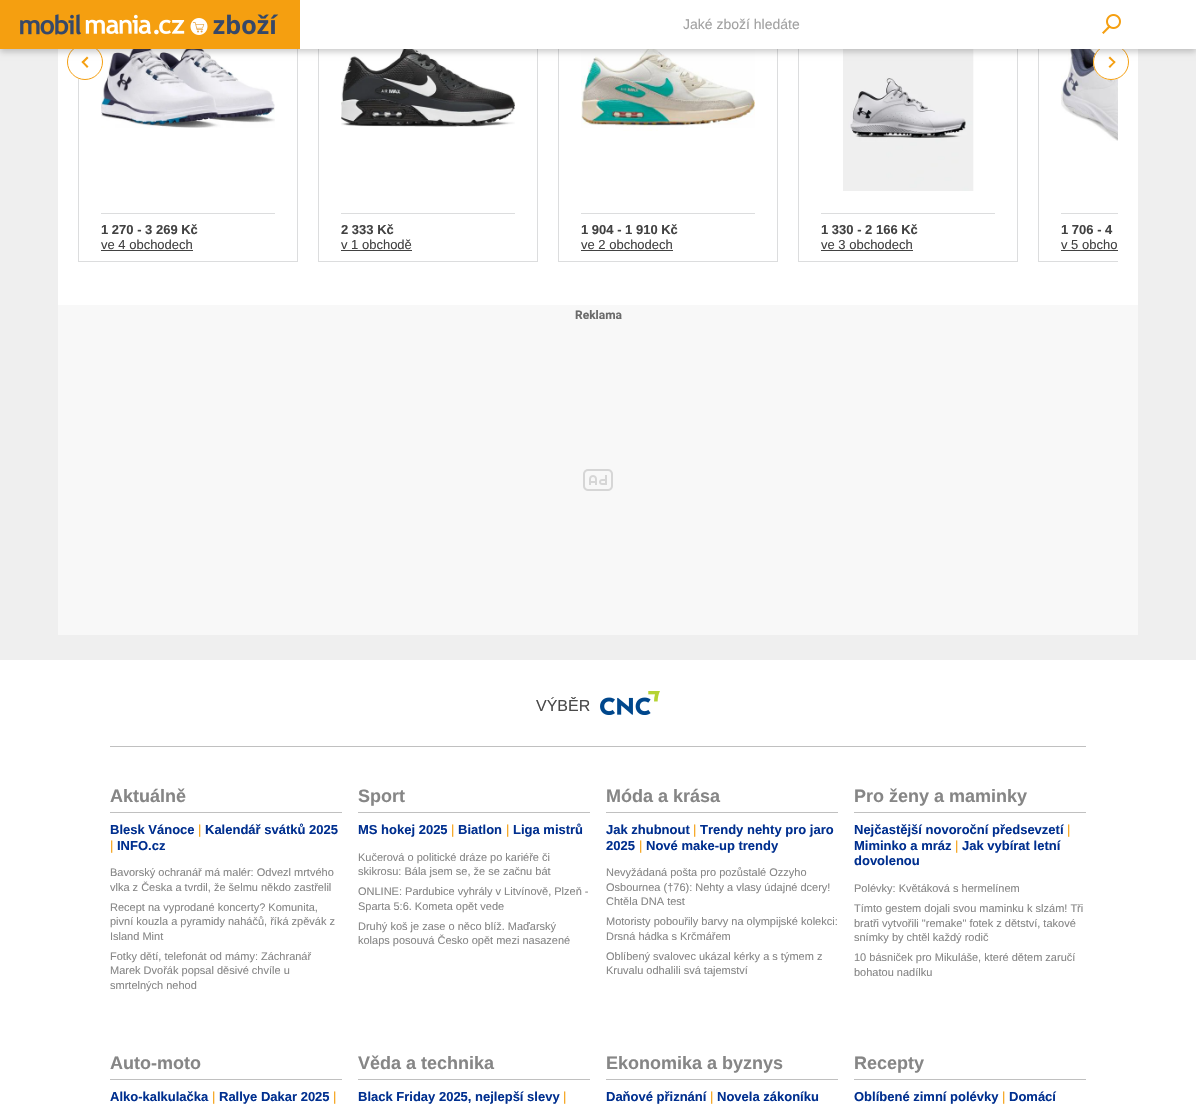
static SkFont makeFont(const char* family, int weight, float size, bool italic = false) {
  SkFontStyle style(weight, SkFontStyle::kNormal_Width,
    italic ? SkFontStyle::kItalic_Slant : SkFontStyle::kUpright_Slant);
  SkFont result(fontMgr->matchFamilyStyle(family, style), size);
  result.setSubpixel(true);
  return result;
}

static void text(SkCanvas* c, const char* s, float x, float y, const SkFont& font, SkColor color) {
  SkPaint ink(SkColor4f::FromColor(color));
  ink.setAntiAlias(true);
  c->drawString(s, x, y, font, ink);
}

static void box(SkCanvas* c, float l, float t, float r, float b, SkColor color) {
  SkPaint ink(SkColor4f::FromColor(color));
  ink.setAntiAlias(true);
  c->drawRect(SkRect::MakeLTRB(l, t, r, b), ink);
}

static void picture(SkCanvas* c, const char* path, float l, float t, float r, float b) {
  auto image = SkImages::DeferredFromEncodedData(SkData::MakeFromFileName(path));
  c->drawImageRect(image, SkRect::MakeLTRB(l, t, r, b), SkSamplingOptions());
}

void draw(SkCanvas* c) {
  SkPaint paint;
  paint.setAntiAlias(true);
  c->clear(0xffefefef);
  box(c, 58, 49, 1138, 305, 0xffffffff);
  paint.setStyle(SkPaint::kStroke_Style);
  paint.setStrokeWidth(1);
  paint.setColor(0xffdcddde);
  c->drawRect(SkRect::MakeLTRB(78.5f, -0.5f, 297.5f, 261.5f), paint);
  picture(c, "img_03.png", 101, 49, 275, 128);
  paint.setStyle(SkPaint::kFill_Style);
  paint.setColor(0xffffffff);
  c->drawCircle(85, 62, 17.5f, paint);
  paint.setStyle(SkPaint::kStroke_Style);
  paint.setColor(0xfff59f10);
  c->drawCircle(85, 62, 17.5f, paint);
  paint.setStyle(SkPaint::kFill_Style);
  c->drawPath(SkPathBuilder().moveTo(83, 61).lineTo(88.5f, 66.5f).lineTo(87, 68).lineTo(81.5f, 62).close().detach(), paint);
  c->drawPath(SkPathBuilder().moveTo(87, 56.5f).lineTo(88.5f, 58).lineTo(83, 63.5f).lineTo(81.5f, 62).close().detach(), paint);
  c->save();
  c->clipRect(SkRect::MakeLTRB(58, 0, 1118, 262));
  paint.setStyle(SkPaint::kStroke_Style);
  paint.setColor(0xffdcddde);
  c->drawRect(SkRect::MakeLTRB(1038.5f, -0.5f, 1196.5f, 261.5f), paint);
  c->restore();
  picture(c, "img_07.png", 1061, 49, 1118, 141);
  paint.setStyle(SkPaint::kFill_Style);
  paint.setColor(0xffffffff);
  c->drawPath(SkPathBuilder().moveTo(1111, 80).cubicTo(1101, 80, 1093, 72, 1093, 62).cubicTo(1093, 52, 1101, 44, 1111, 44).cubicTo(1121, 44, 1129, 52, 1129, 62).cubicTo(1129, 72, 1121, 80, 1111, 80).close().detach(), paint);
  paint.setStyle(SkPaint::kStroke_Style);
  paint.setColor(0xfff59f10);
  c->drawPath(SkPathBuilder().moveTo(1111, 79.5f).cubicTo(1101.5f, 79.5f, 1093.5f, 72, 1093.5f, 62).cubicTo(1093.5f, 52.5f, 1101.5f, 44.5f, 1111, 44.5f).cubicTo(1120.5f, 44.5f, 1128.5f, 52.5f, 1128.5f, 62).cubicTo(1128.5f, 72, 1120.5f, 79.5f, 1111, 79.5f).close().detach(), paint);
  paint.setStyle(SkPaint::kFill_Style);
  c->drawPath(SkPathBuilder().moveTo(1114.5f, 63.5f).lineTo(1108.5f, 58).lineTo(1110, 56.5f).lineTo(1115.5f, 62).close().detach(), paint);
  c->drawPath(SkPathBuilder().moveTo(1110, 68).lineTo(1108.5f, 66.5f).lineTo(1114.5f, 61).lineTo(1115.5f, 62).close().detach(), paint);
  paint.setStyle(SkPaint::kStroke_Style);
  paint.setColor(0xffdcddde);
  c->drawRect(SkRect::MakeLTRB(318.5f, -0.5f, 537.5f, 261.5f), paint);
  picture(c, "img_04.png", 341, 49, 515, 127);
  c->drawRect(SkRect::MakeLTRB(558.5f, -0.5f, 777.5f, 261.5f), paint);
  picture(c, "img_05.png", 581, 49, 755, 131);
  c->drawRect(SkRect::MakeLTRB(798.5f, -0.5f, 1017.5f, 261.5f), paint);
  picture(c, "img_06.png", 843, 49, 974, 191);
  paint.setStyle(SkPaint::kFill_Style);
  paint.setColor(0x33000000);
  paint.setMaskFilter(SkMaskFilter::MakeBlur(kNormal_SkBlurStyle, 3));
  c->drawRect(SkRect::MakeLTRB(0, 3, 1196, 52), paint);
  paint.setMaskFilter(nullptr);
  box(c, 0, 0, 300, 49, 0xfff59f10);
  box(c, 300, 0, 1196, 49, 0xffffffff);
  picture(c, "img_01.png", 20, 14, 279, 35);
  SkFont face1 = makeFont("Liberation Sans", 400, 14);
  text(c, "Jaké zboží hledáte", 683, 29, face1, 0xffa1a1a1);
  picture(c, "img_02.png", 1102, 14, 1121, 34);
  box(c, 101, 213, 275, 214, 0xffdcddde);
  SkFont face2 = makeFont("Liberation Sans", 700, 13);
  text(c, "1 270 - 3 269 Kč", 101, 234, face2, 0xff424242);
  SkFont face3 = makeFont("Liberation Sans", 400, 13);
  text(c, "ve 4 obchodech", 101, 249, face3, 0xff424242);
  box(c, 101, 250, 193, 251, 0xff424242);
  box(c, 341, 213, 515, 214, 0xffdcddde);
  text(c, "2 333 Kč", 341, 234, face2, 0xff424242);
  text(c, "v 1 obchodě", 341, 249, face3, 0xff424242);
  box(c, 341, 250, 412, 251, 0xff424242);
  box(c, 581, 213, 755, 214, 0xffdcddde);
  text(c, "1 904 - 1 910 Kč", 581, 234, face2, 0xff424242);
  text(c, "ve 2 obchodech", 581, 249, face3, 0xff424242);
  box(c, 581, 250, 673, 251, 0xff424242);
  box(c, 821, 213, 995, 214, 0xffdcddde);
  text(c, "1 330 - 2 166 Kč", 821, 234, face2, 0xff424242);
  text(c, "ve 3 obchodech", 821, 249, face3, 0xff424242);
  box(c, 821, 250, 913, 251, 0xff424242);
  box(c, 1061, 213, 1118, 214, 0xffdcddde);
  text(c, "1 706 - 4", 1061, 234, face2, 0xff424242);
  text(c, "v 5 obcho", 1061, 249, face3, 0xff424242);
  box(c, 1061, 250, 1118, 251, 0xff424242);
  box(c, 58, 305, 1138, 635, 0xfff8f8f8);
  picture(c, "img_08.png", 583, 469, 613, 491);
  SkFont face4 = makeFont("Roboto", 700, 12);
  text(c, "Reklama", 575, 319, face4, 0xff6b6b6b);
  box(c, 0, 660, 1196, 1112, 0xffffffff);
  box(c, 110, 746, 1086, 747, 0xffc0c0c0);
  SkFont face5 = makeFont("Liberation Sans", 400, 16);
  text(c, "VÝBĚR", 536, 711, face5, 0xff4a4a4a);
  picture(c, "img_09.png", 600, 691, 660, 715);
  box(c, 110, 812, 342, 813, 0xffc0c0c0);
  SkFont face6 = makeFont("Liberation Sans", 700, 18);
  text(c, "Aktuálně", 110, 802, face6, 0xff868686);
  text(c, "Blesk Vánoce", 110, 834, face2, 0xff002f8f);
  text(c, "|", 198, 834, face3, 0xfff59f10);
  text(c, "Kalendář svátků 2025", 205, 834, face2, 0xff002f8f);
  text(c, "|", 110, 850, face3, 0xfff59f10);
  text(c, "INFO.cz", 117, 850, face2, 0xff002f8f);
  SkFont face7 = makeFont("Liberation Sans", 400, 11);
  text(c, "Bavorský ochranář má malér: Odvezl mrtvého", 110, 876, face7, 0xff868686);
  text(c, "vlka z Česka a tvrdil, že šelmu někdo zastřelil", 110, 891, face7, 0xff868686);
  text(c, "Recept na vyprodané koncerty? Komunita,", 110, 911, face7, 0xff868686);
  text(c, "pivní kouzla a pyramidy naháčů, říká zpěvák z", 110, 925, face7, 0xff868686);
  text(c, "Island Mint", 110, 940, face7, 0xff868686);
  text(c, "Fotky dětí, telefonát od mámy: Záchranář", 110, 960, face7, 0xff868686);
  text(c, "Marek Dvořák popsal děsivé chvíle u", 110, 974, face7, 0xff868686);
  text(c, "smrtelných nehod", 110, 989, face7, 0xff868686);
  box(c, 358, 812, 590, 813, 0xffc0c0c0);
  text(c, "Sport", 358, 802, face6, 0xff868686);
  text(c, "MS hokej 2025", 358, 834, face2, 0xff002f8f);
  text(c, "|", 451, 834, face3, 0xfff59f10);
  text(c, "Biatlon", 458, 834, face2, 0xff002f8f);
  text(c, "|", 506, 834, face3, 0xfff59f10);
  text(c, "Liga mistrů", 513, 834, face2, 0xff002f8f);
  text(c, "Kučerová o politické dráze po kariéře či", 358, 861, face7, 0xff868686);
  text(c, "skikrosu: Bála jsem se, že se začnu bát", 358, 875, face7, 0xff868686);
  text(c, "ONLINE: Pardubice vyhrály v Litvínově, Plzeň -", 358, 895, face7, 0xff868686);
  text(c, "Sparta 5:6. Kometa opět vede", 358, 910, face7, 0xff868686);
  text(c, "Druhý koš je zase o něco blíž. Maďarský", 358, 930, face7, 0xff868686);
  text(c, "kolaps posouvá Česko opět mezi nasazené", 358, 944, face7, 0xff868686);
  box(c, 606, 812, 838, 813, 0xffc0c0c0);
  text(c, "Móda a krása", 606, 802, face6, 0xff868686);
  text(c, "Jak zhubnout", 606, 834, face2, 0xff002f8f);
  text(c, "|", 693, 834, face3, 0xfff59f10);
  text(c, "Trendy nehty pro jaro", 700, 834, face2, 0xff002f8f);
  text(c, "2025", 606, 850, face2, 0xff002f8f);
  text(c, "|", 639, 850, face3, 0xfff59f10);
  text(c, "Nové make-up trendy", 646, 850, face2, 0xff002f8f);
  text(c, "Nevyžádaná pošta pro pozůstalé Ozzyho", 606, 876, face7, 0xff868686);
  text(c, "Osbournea (†76): Nehty a vlasy údajné dcery!", 606, 891, face7, 0xff868686);
  text(c, "Chtěla DNA test", 606, 905, face7, 0xff868686);
  text(c, "Motoristy pobouřily barvy na olympijské kolekci:", 606, 925, face7, 0xff868686);
  text(c, "Drsná hádka s Krčmářem", 606, 940, face7, 0xff868686);
  text(c, "Oblíbený svalovec ukázal kérky a s týmem z", 606, 960, face7, 0xff868686);
  text(c, "Kruvalu odhalili svá tajemství", 606, 974, face7, 0xff868686);
  box(c, 854, 812, 1086, 813, 0xffc0c0c0);
  text(c, "Pro ženy a maminky", 854, 802, face6, 0xff868686);
  text(c, "Nejčastější novoroční předsevzetí", 854, 834, face2, 0xff002f8f);
  text(c, "|", 1067, 834, face3, 0xfff59f10);
  text(c, "Miminko a mráz", 854, 850, face2, 0xff002f8f);
  text(c, "|", 955, 850, face3, 0xfff59f10);
  text(c, "Jak vybírat letní", 962, 850, face2, 0xff002f8f);
  text(c, "dovolenou", 854, 865, face2, 0xff002f8f);
  text(c, "Polévky: Květáková s hermelínem", 854, 892, face7, 0xff868686);
  text(c, "Tímto gestem dojali svou maminku k slzám! Tři", 854, 912, face7, 0xff868686);
  text(c, "bratři vytvořili \"remake\" fotek z dětství, takové", 854, 927, face7, 0xff868686);
  text(c, "snímky by chtěl každý rodič", 854, 941, face7, 0xff868686);
  text(c, "10 básniček pro Mikuláše, které dětem zaručí", 854, 961, face7, 0xff868686);
  text(c, "bohatou nadílku", 854, 976, face7, 0xff868686);
  box(c, 110, 1079, 342, 1080, 0xffc0c0c0);
  text(c, "Auto-moto", 110, 1069, face6, 0xff868686);
  text(c, "Alko-kalkulačka", 110, 1101, face2, 0xff002f8f);
  text(c, "|", 212, 1101, face3, 0xfff59f10);
  text(c, "Rallye Dakar 2025", 219, 1101, face2, 0xff002f8f);
  text(c, "|", 333, 1101, face3, 0xfff59f10);
  box(c, 358, 1079, 590, 1080, 0xffc0c0c0);
  text(c, "Věda a technika", 358, 1069, face6, 0xff868686);
  text(c, "Black Friday 2025, nejlepší slevy", 358, 1101, face2, 0xff002f8f);
  text(c, "|", 563, 1101, face3, 0xfff59f10);
  box(c, 606, 1079, 838, 1080, 0xffc0c0c0);
  text(c, "Ekonomika a byznys", 606, 1069, face6, 0xff868686);
  text(c, "Daňové přiznání", 606, 1101, face2, 0xff002f8f);
  text(c, "|", 710, 1101, face3, 0xfff59f10);
  text(c, "Novela zákoníku", 717, 1101, face2, 0xff002f8f);
  box(c, 854, 1079, 1086, 1080, 0xffc0c0c0);
  text(c, "Recepty", 854, 1069, face6, 0xff868686);
  text(c, "Oblíbené zimní polévky", 854, 1101, face2, 0xff002f8f);
  text(c, "|", 1002, 1101, face3, 0xfff59f10);
  text(c, "Domácí", 1009, 1101, face2, 0xff002f8f);
}
